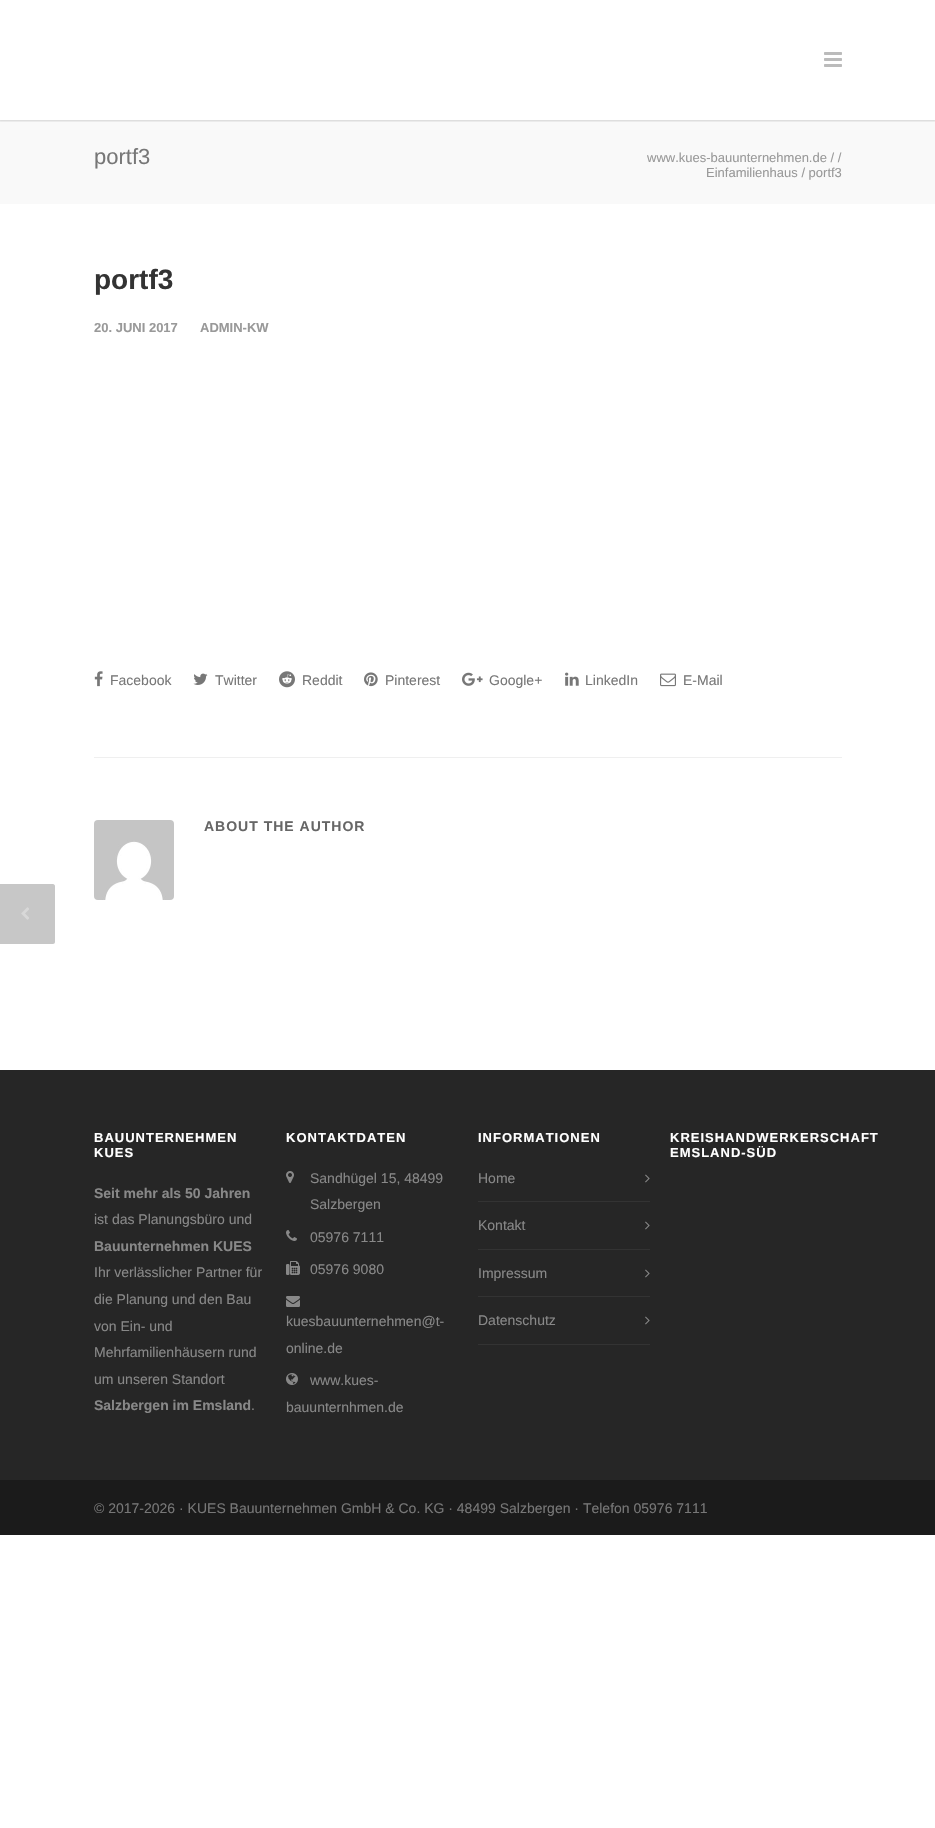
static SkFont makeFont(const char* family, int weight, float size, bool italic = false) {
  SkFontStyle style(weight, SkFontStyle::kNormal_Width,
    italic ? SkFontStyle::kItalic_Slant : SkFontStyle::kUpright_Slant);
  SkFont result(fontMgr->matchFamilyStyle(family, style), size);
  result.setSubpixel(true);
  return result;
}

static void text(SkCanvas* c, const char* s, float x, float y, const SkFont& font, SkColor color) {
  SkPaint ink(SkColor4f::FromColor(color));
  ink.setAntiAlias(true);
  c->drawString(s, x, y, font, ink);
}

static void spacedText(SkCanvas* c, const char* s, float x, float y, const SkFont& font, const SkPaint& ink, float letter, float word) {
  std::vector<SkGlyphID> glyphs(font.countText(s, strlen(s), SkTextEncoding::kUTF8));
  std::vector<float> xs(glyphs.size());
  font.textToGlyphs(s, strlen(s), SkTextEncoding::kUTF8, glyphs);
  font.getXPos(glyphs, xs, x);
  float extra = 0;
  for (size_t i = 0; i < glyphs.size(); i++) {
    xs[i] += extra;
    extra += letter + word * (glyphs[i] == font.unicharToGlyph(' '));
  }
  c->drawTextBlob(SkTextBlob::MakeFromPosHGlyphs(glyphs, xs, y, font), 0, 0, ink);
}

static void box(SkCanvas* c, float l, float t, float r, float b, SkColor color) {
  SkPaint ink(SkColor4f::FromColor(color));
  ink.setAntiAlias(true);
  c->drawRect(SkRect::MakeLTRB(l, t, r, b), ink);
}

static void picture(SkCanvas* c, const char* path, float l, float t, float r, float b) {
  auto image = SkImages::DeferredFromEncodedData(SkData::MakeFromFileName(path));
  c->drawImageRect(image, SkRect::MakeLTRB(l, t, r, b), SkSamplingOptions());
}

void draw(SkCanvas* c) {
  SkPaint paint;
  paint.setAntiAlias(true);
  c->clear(0xffffffff);
  box(c, 0, 120, 935, 204, 0xfff9f9f9);
  c->save();
  c->clipRect(SkRect::MakeLTRB(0, 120, 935, 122));
  paint.setColor(0x29000000);
  paint.setMaskFilter(SkMaskFilter::MakeBlur(kNormal_SkBlurStyle, 1));
  c->drawRect(SkRect::MakeLTRB(-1, -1, 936, 121), paint);
  paint.setMaskFilter(nullptr);
  c->restore();
  picture(c, "img_01.png", 824, 52, 842, 67);
  SkFont face1 = makeFont("Liberation Sans", 400, 22);
  text(c, "portf3", 94, 164, face1, 0xff777777);
  SkFont face2 = makeFont("Liberation Sans", 400, 13);
  text(c, "www.kues-bauunternehmen.de / /", 647, 162, face2, 0xff999999);
  text(c, "Einfamilienhaus / portf3", 706, 177, face2, 0xff999999);
  SkFont face3 = makeFont("Liberation Sans", 700, 28);
  text(c, "portf3", 94, 289, face3, 0xff333333);
  SkFont face4 = makeFont("Liberation Sans", 700, 13);
  text(c, "20. JUNI 2017", 94, 332, face4, 0xff999999);
  text(c, "ADMIN-KW", 200, 332, face4, 0xff999999);
  picture(c, "img_02.png", 94, 671, 103, 687);
  SkFont face5 = makeFont("Liberation Sans", 400, 14);
  text(c, "Facebook", 110, 685, face5, 0xff777777);
  picture(c, "img_03.png", 193, 673, 208, 685);
  text(c, "Twitter", 215, 685, face5, 0xff777777);
  picture(c, "img_04.png", 279, 671, 295, 688);
  text(c, "Reddit", 302, 685, face5, 0xff777777);
  picture(c, "img_05.png", 364, 672, 378, 687);
  text(c, "Pinterest", 385, 685, face5, 0xff777777);
  picture(c, "img_06.png", 462, 672, 483, 686);
  text(c, "Google+", 489, 685, face5, 0xff777777);
  picture(c, "img_07.png", 565, 672, 579, 686);
  text(c, "LinkedIn", 585, 685, face5, 0xff777777);
  picture(c, "img_08.png", 660, 673, 676, 687);
  text(c, "E-Mail", 683, 685, face5, 0xff777777);
  box(c, 94, 757, 842, 758, 0xffefefef);
  picture(c, "img_09.png", 94, 820, 174, 900);
  SkFont face6 = makeFont("Liberation Sans", 700, 14);
  paint.setColor(0xff666666);
  spacedText(c, "ABOUT THE AUTHOR", 204, 831, face6, paint, 1, 0);
  paint.setColor(0xffc7c7c7);
  c->drawPath(SkPathBuilder().moveTo(-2, 884).lineTo(53, 884).cubicTo(54, 884, 55, 885, 55, 886).lineTo(55, 942).cubicTo(55, 943, 54, 944, 53, 944).lineTo(-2, 944).close().detach(), paint);
  picture(c, "img_10.png", 21, 907, 29, 920);
  box(c, 0, 1070, 935, 1480, 0xff262626);
  paint.setColor(0xffffffff);
  spacedText(c, "BAUUNTERNEHMEN", 94, 1142, face4, paint, 1, 0);
  spacedText(c, "KUES", 94, 1157, face4, paint, 1, 0);
  text(c, "Seit mehr als 50 Jahren", 94, 1198, face6, 0xff888888);
  text(c, "ist das Planungsbüro und", 94, 1224, face5, 0xff888888);
  text(c, "Bauunternehmen KUES", 94, 1251, face6, 0xff888888);
  text(c, "Ihr verlässlicher Partner für", 94, 1277, face5, 0xff888888);
  text(c, "die Planung und den Bau", 94, 1304, face5, 0xff888888);
  text(c, "von Ein- und", 94, 1331, face5, 0xff888888);
  text(c, "Mehrfamilienhäusern rund", 94, 1357, face5, 0xff888888);
  text(c, "um unseren Standort", 94, 1384, face5, 0xff888888);
  text(c, "Salzbergen im Emsland", 94, 1410, face6, 0xff888888);
  text(c, ".", 251, 1410, face5, 0xff888888);
  spacedText(c, "KONTAKTDATEN", 286, 1142, face4, paint, 1, 0);
  picture(c, "img_11.png", 286, 1171, 294, 1183);
  text(c, "Sandhügel 15, 48499", 310, 1183, face5, 0xff888888);
  text(c, "Salzbergen", 310, 1209, face5, 0xff888888);
  picture(c, "img_12.png", 286, 1230, 297, 1241);
  text(c, "05976 7111", 310, 1242, face5, 0xff888888);
  picture(c, "img_13.png", 286, 1261, 300, 1275);
  text(c, "05976 9080", 310, 1274, face5, 0xff888888);
  picture(c, "img_14.png", 286, 1296, 300, 1307);
  text(c, "kuesbauunternehmen@t-", 286, 1326, face5, 0xff888888);
  text(c, "online.de", 286, 1353, face5, 0xff888888);
  picture(c, "img_15.png", 286, 1373, 298, 1385);
  text(c, "www.kues-", 310, 1385, face5, 0xff888888);
  text(c, "bauunternhmen.de", 286, 1412, face5, 0xff888888);
  spacedText(c, "INFORMATIONEN", 478, 1142, face4, paint, 1, 0);
  box(c, 478, 1201, 650, 1202, 0xff333333);
  text(c, "Home", 478, 1183, face5, 0xff888888);
  picture(c, "img_16.png", 645, 1174, 650, 1183);
  box(c, 478, 1249, 650, 1250, 0xff333333);
  text(c, "Kontakt", 478, 1230, face5, 0xff888888);
  picture(c, "img_16.png", 645, 1221, 650, 1230);
  box(c, 478, 1296, 650, 1297, 0xff333333);
  text(c, "Impressum", 478, 1278, face5, 0xff888888);
  picture(c, "img_16.png", 645, 1269, 650, 1278);
  box(c, 478, 1344, 650, 1345, 0xff333333);
  text(c, "Datenschutz", 478, 1325, face5, 0xff888888);
  picture(c, "img_16.png", 645, 1316, 650, 1325);
  spacedText(c, "KREISHANDWERKERSCHAFT", 670, 1142, face4, paint, 1, 0);
  spacedText(c, "EMSLAND-SÜD", 670, 1157, face4, paint, 1, 0);
  box(c, 0, 1480, 935, 1535, 0xff1b1b1b);
  text(c, "© 2017-2026 · KUES Bauunternehmen GmbH & Co. KG · 48499 Salzbergen · Telefon 05976 7111", 94, 1513, face5, 0xff777777);
}
